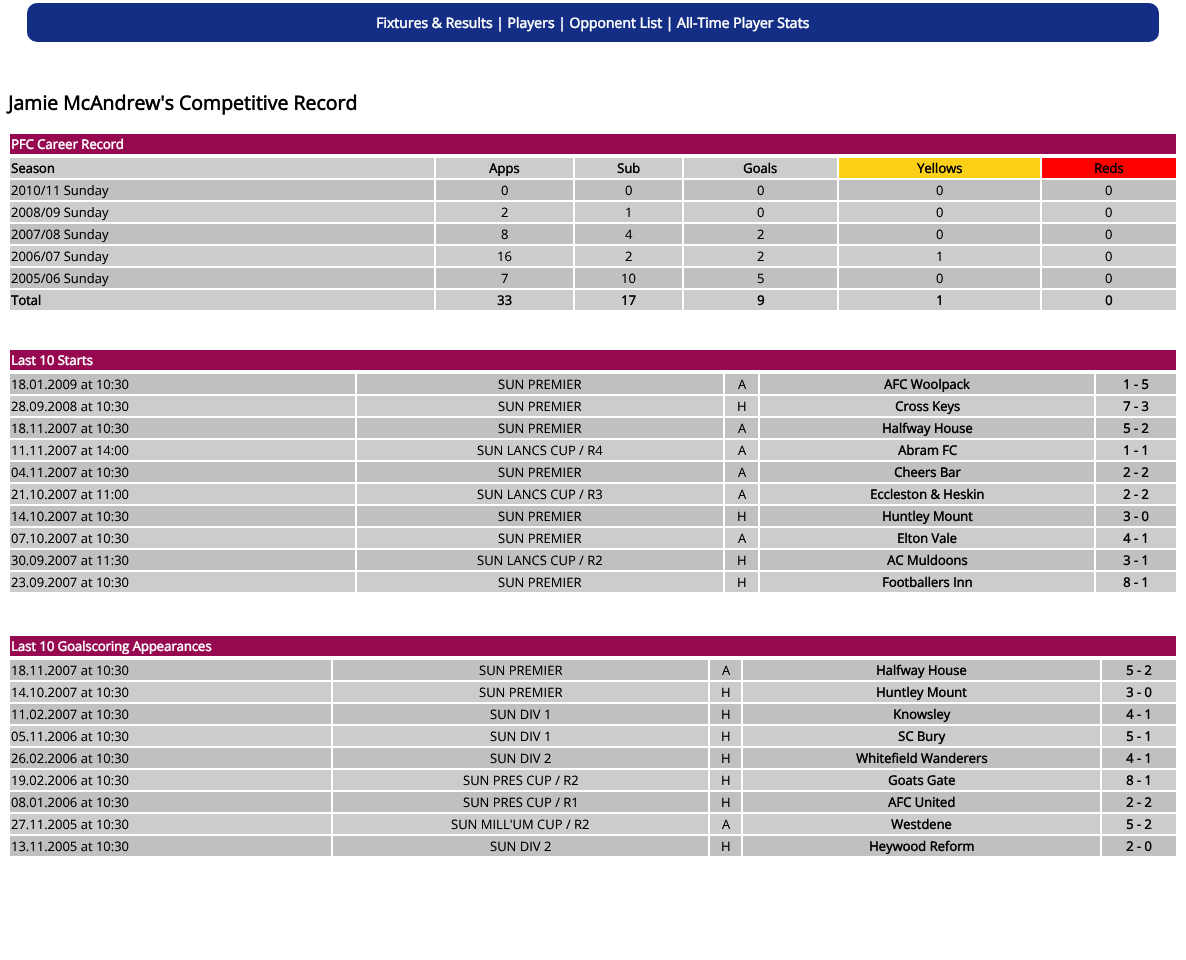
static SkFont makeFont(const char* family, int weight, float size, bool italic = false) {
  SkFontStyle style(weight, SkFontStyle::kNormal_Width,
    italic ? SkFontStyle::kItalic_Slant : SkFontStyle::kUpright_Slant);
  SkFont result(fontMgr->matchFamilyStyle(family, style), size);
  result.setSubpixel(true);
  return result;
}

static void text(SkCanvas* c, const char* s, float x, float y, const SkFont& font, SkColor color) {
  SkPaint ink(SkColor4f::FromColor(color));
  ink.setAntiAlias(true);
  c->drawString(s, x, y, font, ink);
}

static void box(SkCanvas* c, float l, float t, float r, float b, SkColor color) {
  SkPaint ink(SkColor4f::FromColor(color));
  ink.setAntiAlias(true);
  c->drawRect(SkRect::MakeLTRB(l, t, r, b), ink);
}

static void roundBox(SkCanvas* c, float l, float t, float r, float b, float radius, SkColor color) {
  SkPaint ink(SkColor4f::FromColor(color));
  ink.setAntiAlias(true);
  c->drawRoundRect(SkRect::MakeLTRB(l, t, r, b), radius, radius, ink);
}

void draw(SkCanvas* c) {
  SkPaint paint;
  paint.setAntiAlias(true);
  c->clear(0xffffffff);
  roundBox(c, 27, 3, 1159, 42, 10, 0xff142e85);
  SkFont face1 = makeFont("Open Sans", 700, 14);
  text(c, "Fixtures & Results | Players | Opponent List | All-Time Player Stats", 376, 28, face1, 0xffffffff);
  SkFont face2 = makeFont("Open Sans", 700, 19.5f);
  text(c, "Jamie McAndrew's Competitive Record", 8, 110, face2, 0xff000000);
  box(c, 10, 134, 1176, 154, 0xff960950);
  SkFont face3 = makeFont("Open Sans", 700, 13);
  text(c, "PFC Career Record", 11, 149, face3, 0xffffffff);
  box(c, 10, 158, 434, 178, 0xffcccccc);
  text(c, "Season", 11, 173, face3, 0xff000000);
  box(c, 436, 158, 573, 178, 0xffcccccc);
  text(c, "Apps", 489, 173, face3, 0xff000000);
  box(c, 575, 158, 682, 178, 0xffcccccc);
  text(c, "Sub", 617, 173, face3, 0xff000000);
  box(c, 684, 158, 837, 178, 0xffcccccc);
  text(c, "Goals", 743, 173, face3, 0xff000000);
  box(c, 839, 158, 1040, 178, 0xfffdd017);
  text(c, "Yellows", 917, 173, face3, 0xff000000);
  box(c, 1042, 158, 1176, 178, 0xffff0000);
  text(c, "Reds", 1094, 173, face3, 0xff000000);
  box(c, 10, 180, 434, 200, 0xffc0c0c0);
  SkFont face4 = makeFont("Open Sans", 400, 13);
  text(c, "2010/11 Sunday", 11, 195, face4, 0xff000000);
  box(c, 436, 180, 573, 200, 0xffc0c0c0);
  text(c, "0", 501, 195, face4, 0xff000000);
  box(c, 575, 180, 682, 200, 0xffc0c0c0);
  text(c, "0", 625, 195, face4, 0xff000000);
  box(c, 684, 180, 837, 200, 0xffc0c0c0);
  text(c, "0", 757, 195, face4, 0xff000000);
  box(c, 839, 180, 1040, 200, 0xffc0c0c0);
  text(c, "0", 936, 195, face4, 0xff000000);
  box(c, 1042, 180, 1176, 200, 0xffc0c0c0);
  text(c, "0", 1105, 195, face4, 0xff000000);
  box(c, 10, 202, 434, 222, 0xffcccccc);
  text(c, "2008/09 Sunday", 11, 217, face4, 0xff000000);
  box(c, 436, 202, 573, 222, 0xffcccccc);
  text(c, "2", 501, 217, face4, 0xff000000);
  box(c, 575, 202, 682, 222, 0xffcccccc);
  text(c, "1", 625, 217, face4, 0xff000000);
  box(c, 684, 202, 837, 222, 0xffcccccc);
  text(c, "0", 757, 217, face4, 0xff000000);
  box(c, 839, 202, 1040, 222, 0xffcccccc);
  text(c, "0", 936, 217, face4, 0xff000000);
  box(c, 1042, 202, 1176, 222, 0xffcccccc);
  text(c, "0", 1105, 217, face4, 0xff000000);
  box(c, 10, 224, 434, 244, 0xffc0c0c0);
  text(c, "2007/08 Sunday", 11, 239, face4, 0xff000000);
  box(c, 436, 224, 573, 244, 0xffc0c0c0);
  text(c, "8", 501, 239, face4, 0xff000000);
  box(c, 575, 224, 682, 244, 0xffc0c0c0);
  text(c, "4", 625, 239, face4, 0xff000000);
  box(c, 684, 224, 837, 244, 0xffc0c0c0);
  text(c, "2", 757, 239, face4, 0xff000000);
  box(c, 839, 224, 1040, 244, 0xffc0c0c0);
  text(c, "0", 936, 239, face4, 0xff000000);
  box(c, 1042, 224, 1176, 244, 0xffc0c0c0);
  text(c, "0", 1105, 239, face4, 0xff000000);
  box(c, 10, 246, 434, 266, 0xffcccccc);
  text(c, "2006/07 Sunday", 11, 261, face4, 0xff000000);
  box(c, 436, 246, 573, 266, 0xffcccccc);
  text(c, "16", 497, 261, face4, 0xff000000);
  box(c, 575, 246, 682, 266, 0xffcccccc);
  text(c, "2", 625, 261, face4, 0xff000000);
  box(c, 684, 246, 837, 266, 0xffcccccc);
  text(c, "2", 757, 261, face4, 0xff000000);
  box(c, 839, 246, 1040, 266, 0xffcccccc);
  text(c, "1", 936, 261, face4, 0xff000000);
  box(c, 1042, 246, 1176, 266, 0xffcccccc);
  text(c, "0", 1105, 261, face4, 0xff000000);
  box(c, 10, 268, 434, 288, 0xffc0c0c0);
  text(c, "2005/06 Sunday", 11, 283, face4, 0xff000000);
  box(c, 436, 268, 573, 288, 0xffc0c0c0);
  text(c, "7", 501, 283, face4, 0xff000000);
  box(c, 575, 268, 682, 288, 0xffc0c0c0);
  text(c, "10", 621, 283, face4, 0xff000000);
  box(c, 684, 268, 837, 288, 0xffc0c0c0);
  text(c, "5", 757, 283, face4, 0xff000000);
  box(c, 839, 268, 1040, 288, 0xffc0c0c0);
  text(c, "0", 936, 283, face4, 0xff000000);
  box(c, 1042, 268, 1176, 288, 0xffc0c0c0);
  text(c, "0", 1105, 283, face4, 0xff000000);
  box(c, 10, 290, 434, 310, 0xffcccccc);
  text(c, "Total", 11, 305, face3, 0xff000000);
  box(c, 436, 290, 573, 310, 0xffcccccc);
  text(c, "33", 497, 305, face3, 0xff000000);
  box(c, 575, 290, 682, 310, 0xffcccccc);
  text(c, "17", 621, 305, face3, 0xff000000);
  box(c, 684, 290, 837, 310, 0xffcccccc);
  text(c, "9", 757, 305, face3, 0xff000000);
  box(c, 839, 290, 1040, 310, 0xffcccccc);
  text(c, "1", 936, 305, face3, 0xff000000);
  box(c, 1042, 290, 1176, 310, 0xffcccccc);
  text(c, "0", 1105, 305, face3, 0xff000000);
  box(c, 10, 350, 1176, 370, 0xff960950);
  text(c, "Last 10 Starts", 11, 365, face3, 0xffffffff);
  box(c, 10, 374, 355, 394, 0xffc0c0c0);
  text(c, "18.01.2009 at 10:30", 11, 389, face4, 0xff000000);
  box(c, 357, 374, 723, 394, 0xffc0c0c0);
  text(c, "SUN PREMIER", 498, 389, face4, 0xff000000);
  box(c, 725, 374, 758, 394, 0xffc0c0c0);
  text(c, "A", 738, 389, face4, 0xff000000);
  box(c, 760, 374, 1094, 394, 0xffc0c0c0);
  text(c, "AFC Woolpack", 884, 389, face3, 0xff000000);
  box(c, 1096, 374, 1176, 394, 0xffc0c0c0);
  text(c, "1 - 5", 1123, 389, face3, 0xff000000);
  box(c, 10, 396, 355, 416, 0xffcccccc);
  text(c, "28.09.2008 at 10:30", 11, 411, face4, 0xff000000);
  box(c, 357, 396, 723, 416, 0xffcccccc);
  text(c, "SUN PREMIER", 498, 411, face4, 0xff000000);
  box(c, 725, 396, 758, 416, 0xffcccccc);
  text(c, "H", 737, 411, face4, 0xff000000);
  box(c, 760, 396, 1094, 416, 0xffcccccc);
  text(c, "Cross Keys", 895, 411, face3, 0xff000000);
  box(c, 1096, 396, 1176, 416, 0xffcccccc);
  text(c, "7 - 3", 1123, 411, face3, 0xff000000);
  box(c, 10, 418, 355, 438, 0xffc0c0c0);
  text(c, "18.11.2007 at 10:30", 11, 433, face4, 0xff000000);
  box(c, 357, 418, 723, 438, 0xffc0c0c0);
  text(c, "SUN PREMIER", 498, 433, face4, 0xff000000);
  box(c, 725, 418, 758, 438, 0xffc0c0c0);
  text(c, "A", 738, 433, face4, 0xff000000);
  box(c, 760, 418, 1094, 438, 0xffc0c0c0);
  text(c, "Halfway House", 882, 433, face3, 0xff000000);
  box(c, 1096, 418, 1176, 438, 0xffc0c0c0);
  text(c, "5 - 2", 1123, 433, face3, 0xff000000);
  box(c, 10, 440, 355, 460, 0xffcccccc);
  text(c, "11.11.2007 at 14:00", 11, 455, face4, 0xff000000);
  box(c, 357, 440, 723, 460, 0xffcccccc);
  text(c, "SUN LANCS CUP / R4", 477, 455, face4, 0xff000000);
  box(c, 725, 440, 758, 460, 0xffcccccc);
  text(c, "A", 738, 455, face4, 0xff000000);
  box(c, 760, 440, 1094, 460, 0xffcccccc);
  text(c, "Abram FC", 898, 455, face3, 0xff000000);
  box(c, 1096, 440, 1176, 460, 0xffcccccc);
  text(c, "1 - 1", 1123, 455, face3, 0xff000000);
  box(c, 10, 462, 355, 482, 0xffc0c0c0);
  text(c, "04.11.2007 at 10:30", 11, 477, face4, 0xff000000);
  box(c, 357, 462, 723, 482, 0xffc0c0c0);
  text(c, "SUN PREMIER", 498, 477, face4, 0xff000000);
  box(c, 725, 462, 758, 482, 0xffc0c0c0);
  text(c, "A", 738, 477, face4, 0xff000000);
  box(c, 760, 462, 1094, 482, 0xffc0c0c0);
  text(c, "Cheers Bar", 894, 477, face3, 0xff000000);
  box(c, 1096, 462, 1176, 482, 0xffc0c0c0);
  text(c, "2 - 2", 1123, 477, face3, 0xff000000);
  box(c, 10, 484, 355, 504, 0xffcccccc);
  text(c, "21.10.2007 at 11:00", 11, 499, face4, 0xff000000);
  box(c, 357, 484, 723, 504, 0xffcccccc);
  text(c, "SUN LANCS CUP / R3", 477, 499, face4, 0xff000000);
  box(c, 725, 484, 758, 504, 0xffcccccc);
  text(c, "A", 738, 499, face4, 0xff000000);
  box(c, 760, 484, 1094, 504, 0xffcccccc);
  text(c, "Eccleston & Heskin", 870, 499, face3, 0xff000000);
  box(c, 1096, 484, 1176, 504, 0xffcccccc);
  text(c, "2 - 2", 1123, 499, face3, 0xff000000);
  box(c, 10, 506, 355, 526, 0xffc0c0c0);
  text(c, "14.10.2007 at 10:30", 11, 521, face4, 0xff000000);
  box(c, 357, 506, 723, 526, 0xffc0c0c0);
  text(c, "SUN PREMIER", 498, 521, face4, 0xff000000);
  box(c, 725, 506, 758, 526, 0xffc0c0c0);
  text(c, "H", 737, 521, face4, 0xff000000);
  box(c, 760, 506, 1094, 526, 0xffc0c0c0);
  text(c, "Huntley Mount", 882, 521, face3, 0xff000000);
  box(c, 1096, 506, 1176, 526, 0xffc0c0c0);
  text(c, "3 - 0", 1123, 521, face3, 0xff000000);
  box(c, 10, 528, 355, 548, 0xffcccccc);
  text(c, "07.10.2007 at 10:30", 11, 543, face4, 0xff000000);
  box(c, 357, 528, 723, 548, 0xffcccccc);
  text(c, "SUN PREMIER", 498, 543, face4, 0xff000000);
  box(c, 725, 528, 758, 548, 0xffcccccc);
  text(c, "A", 738, 543, face4, 0xff000000);
  box(c, 760, 528, 1094, 548, 0xffcccccc);
  text(c, "Elton Vale", 897, 543, face3, 0xff000000);
  box(c, 1096, 528, 1176, 548, 0xffcccccc);
  text(c, "4 - 1", 1123, 543, face3, 0xff000000);
  box(c, 10, 550, 355, 570, 0xffc0c0c0);
  text(c, "30.09.2007 at 11:30", 11, 565, face4, 0xff000000);
  box(c, 357, 550, 723, 570, 0xffc0c0c0);
  text(c, "SUN LANCS CUP / R2", 477, 565, face4, 0xff000000);
  box(c, 725, 550, 758, 570, 0xffc0c0c0);
  text(c, "H", 737, 565, face4, 0xff000000);
  box(c, 760, 550, 1094, 570, 0xffc0c0c0);
  text(c, "AC Muldoons", 887, 565, face3, 0xff000000);
  box(c, 1096, 550, 1176, 570, 0xffc0c0c0);
  text(c, "3 - 1", 1123, 565, face3, 0xff000000);
  box(c, 10, 572, 355, 592, 0xffcccccc);
  text(c, "23.09.2007 at 10:30", 11, 587, face4, 0xff000000);
  box(c, 357, 572, 723, 592, 0xffcccccc);
  text(c, "SUN PREMIER", 498, 587, face4, 0xff000000);
  box(c, 725, 572, 758, 592, 0xffcccccc);
  text(c, "H", 737, 587, face4, 0xff000000);
  box(c, 760, 572, 1094, 592, 0xffcccccc);
  text(c, "Footballers Inn", 882, 587, face3, 0xff000000);
  box(c, 1096, 572, 1176, 592, 0xffcccccc);
  text(c, "8 - 1", 1123, 587, face3, 0xff000000);
  box(c, 10, 636, 1176, 656, 0xff960950);
  text(c, "Last 10 Goalscoring Appearances", 11, 651, face3, 0xffffffff);
  box(c, 10, 660, 331, 680, 0xffc0c0c0);
  text(c, "18.11.2007 at 10:30", 11, 675, face4, 0xff000000);
  box(c, 333, 660, 708, 680, 0xffc0c0c0);
  text(c, "SUN PREMIER", 479, 675, face4, 0xff000000);
  box(c, 710, 660, 741, 680, 0xffc0c0c0);
  text(c, "A", 722, 675, face4, 0xff000000);
  box(c, 743, 660, 1100, 680, 0xffc0c0c0);
  text(c, "Halfway House", 876, 675, face3, 0xff000000);
  box(c, 1102, 660, 1176, 680, 0xffc0c0c0);
  text(c, "5 - 2", 1126, 675, face3, 0xff000000);
  box(c, 10, 682, 331, 702, 0xffcccccc);
  text(c, "14.10.2007 at 10:30", 11, 697, face4, 0xff000000);
  box(c, 333, 682, 708, 702, 0xffcccccc);
  text(c, "SUN PREMIER", 479, 697, face4, 0xff000000);
  box(c, 710, 682, 741, 702, 0xffcccccc);
  text(c, "H", 721, 697, face4, 0xff000000);
  box(c, 743, 682, 1100, 702, 0xffcccccc);
  text(c, "Huntley Mount", 876, 697, face3, 0xff000000);
  box(c, 1102, 682, 1176, 702, 0xffcccccc);
  text(c, "3 - 0", 1126, 697, face3, 0xff000000);
  box(c, 10, 704, 331, 724, 0xffc0c0c0);
  text(c, "11.02.2007 at 10:30", 11, 719, face4, 0xff000000);
  box(c, 333, 704, 708, 724, 0xffc0c0c0);
  text(c, "SUN DIV 1", 490, 719, face4, 0xff000000);
  box(c, 710, 704, 741, 724, 0xffc0c0c0);
  text(c, "H", 721, 719, face4, 0xff000000);
  box(c, 743, 704, 1100, 724, 0xffc0c0c0);
  text(c, "Knowsley", 893, 719, face3, 0xff000000);
  box(c, 1102, 704, 1176, 724, 0xffc0c0c0);
  text(c, "4 - 1", 1126, 719, face3, 0xff000000);
  box(c, 10, 726, 331, 746, 0xffcccccc);
  text(c, "05.11.2006 at 10:30", 11, 741, face4, 0xff000000);
  box(c, 333, 726, 708, 746, 0xffcccccc);
  text(c, "SUN DIV 1", 490, 741, face4, 0xff000000);
  box(c, 710, 726, 741, 746, 0xffcccccc);
  text(c, "H", 721, 741, face4, 0xff000000);
  box(c, 743, 726, 1100, 746, 0xffcccccc);
  text(c, "SC Bury", 898, 741, face3, 0xff000000);
  box(c, 1102, 726, 1176, 746, 0xffcccccc);
  text(c, "5 - 1", 1126, 741, face3, 0xff000000);
  box(c, 10, 748, 331, 768, 0xffc0c0c0);
  text(c, "26.02.2006 at 10:30", 11, 763, face4, 0xff000000);
  box(c, 333, 748, 708, 768, 0xffc0c0c0);
  text(c, "SUN DIV 2", 490, 763, face4, 0xff000000);
  box(c, 710, 748, 741, 768, 0xffc0c0c0);
  text(c, "H", 721, 763, face4, 0xff000000);
  box(c, 743, 748, 1100, 768, 0xffc0c0c0);
  text(c, "Whitefield Wanderers", 856, 763, face3, 0xff000000);
  box(c, 1102, 748, 1176, 768, 0xffc0c0c0);
  text(c, "4 - 1", 1126, 763, face3, 0xff000000);
  box(c, 10, 770, 331, 790, 0xffcccccc);
  text(c, "19.02.2006 at 10:30", 11, 785, face4, 0xff000000);
  box(c, 333, 770, 708, 790, 0xffcccccc);
  text(c, "SUN PRES CUP / R2", 463, 785, face4, 0xff000000);
  box(c, 710, 770, 741, 790, 0xffcccccc);
  text(c, "H", 721, 785, face4, 0xff000000);
  box(c, 743, 770, 1100, 790, 0xffcccccc);
  text(c, "Goats Gate", 888, 785, face3, 0xff000000);
  box(c, 1102, 770, 1176, 790, 0xffcccccc);
  text(c, "8 - 1", 1126, 785, face3, 0xff000000);
  box(c, 10, 792, 331, 812, 0xffc0c0c0);
  text(c, "08.01.2006 at 10:30", 11, 807, face4, 0xff000000);
  box(c, 333, 792, 708, 812, 0xffc0c0c0);
  text(c, "SUN PRES CUP / R1", 463, 807, face4, 0xff000000);
  box(c, 710, 792, 741, 812, 0xffc0c0c0);
  text(c, "H", 721, 807, face4, 0xff000000);
  box(c, 743, 792, 1100, 812, 0xffc0c0c0);
  text(c, "AFC United", 888, 807, face3, 0xff000000);
  box(c, 1102, 792, 1176, 812, 0xffc0c0c0);
  text(c, "2 - 2", 1126, 807, face3, 0xff000000);
  box(c, 10, 814, 331, 834, 0xffcccccc);
  text(c, "27.11.2005 at 10:30", 11, 829, face4, 0xff000000);
  box(c, 333, 814, 708, 834, 0xffcccccc);
  text(c, "SUN MILL'UM CUP / R2", 451, 829, face4, 0xff000000);
  box(c, 710, 814, 741, 834, 0xffcccccc);
  text(c, "A", 722, 829, face4, 0xff000000);
  box(c, 743, 814, 1100, 834, 0xffcccccc);
  text(c, "Westdene", 891, 829, face3, 0xff000000);
  box(c, 1102, 814, 1176, 834, 0xffcccccc);
  text(c, "5 - 2", 1126, 829, face3, 0xff000000);
  box(c, 10, 836, 331, 856, 0xffc0c0c0);
  text(c, "13.11.2005 at 10:30", 11, 851, face4, 0xff000000);
  box(c, 333, 836, 708, 856, 0xffc0c0c0);
  text(c, "SUN DIV 2", 490, 851, face4, 0xff000000);
  box(c, 710, 836, 741, 856, 0xffc0c0c0);
  text(c, "H", 721, 851, face4, 0xff000000);
  box(c, 743, 836, 1100, 856, 0xffc0c0c0);
  text(c, "Heywood Reform", 869, 851, face3, 0xff000000);
  box(c, 1102, 836, 1176, 856, 0xffc0c0c0);
  text(c, "2 - 0", 1126, 851, face3, 0xff000000);
}
